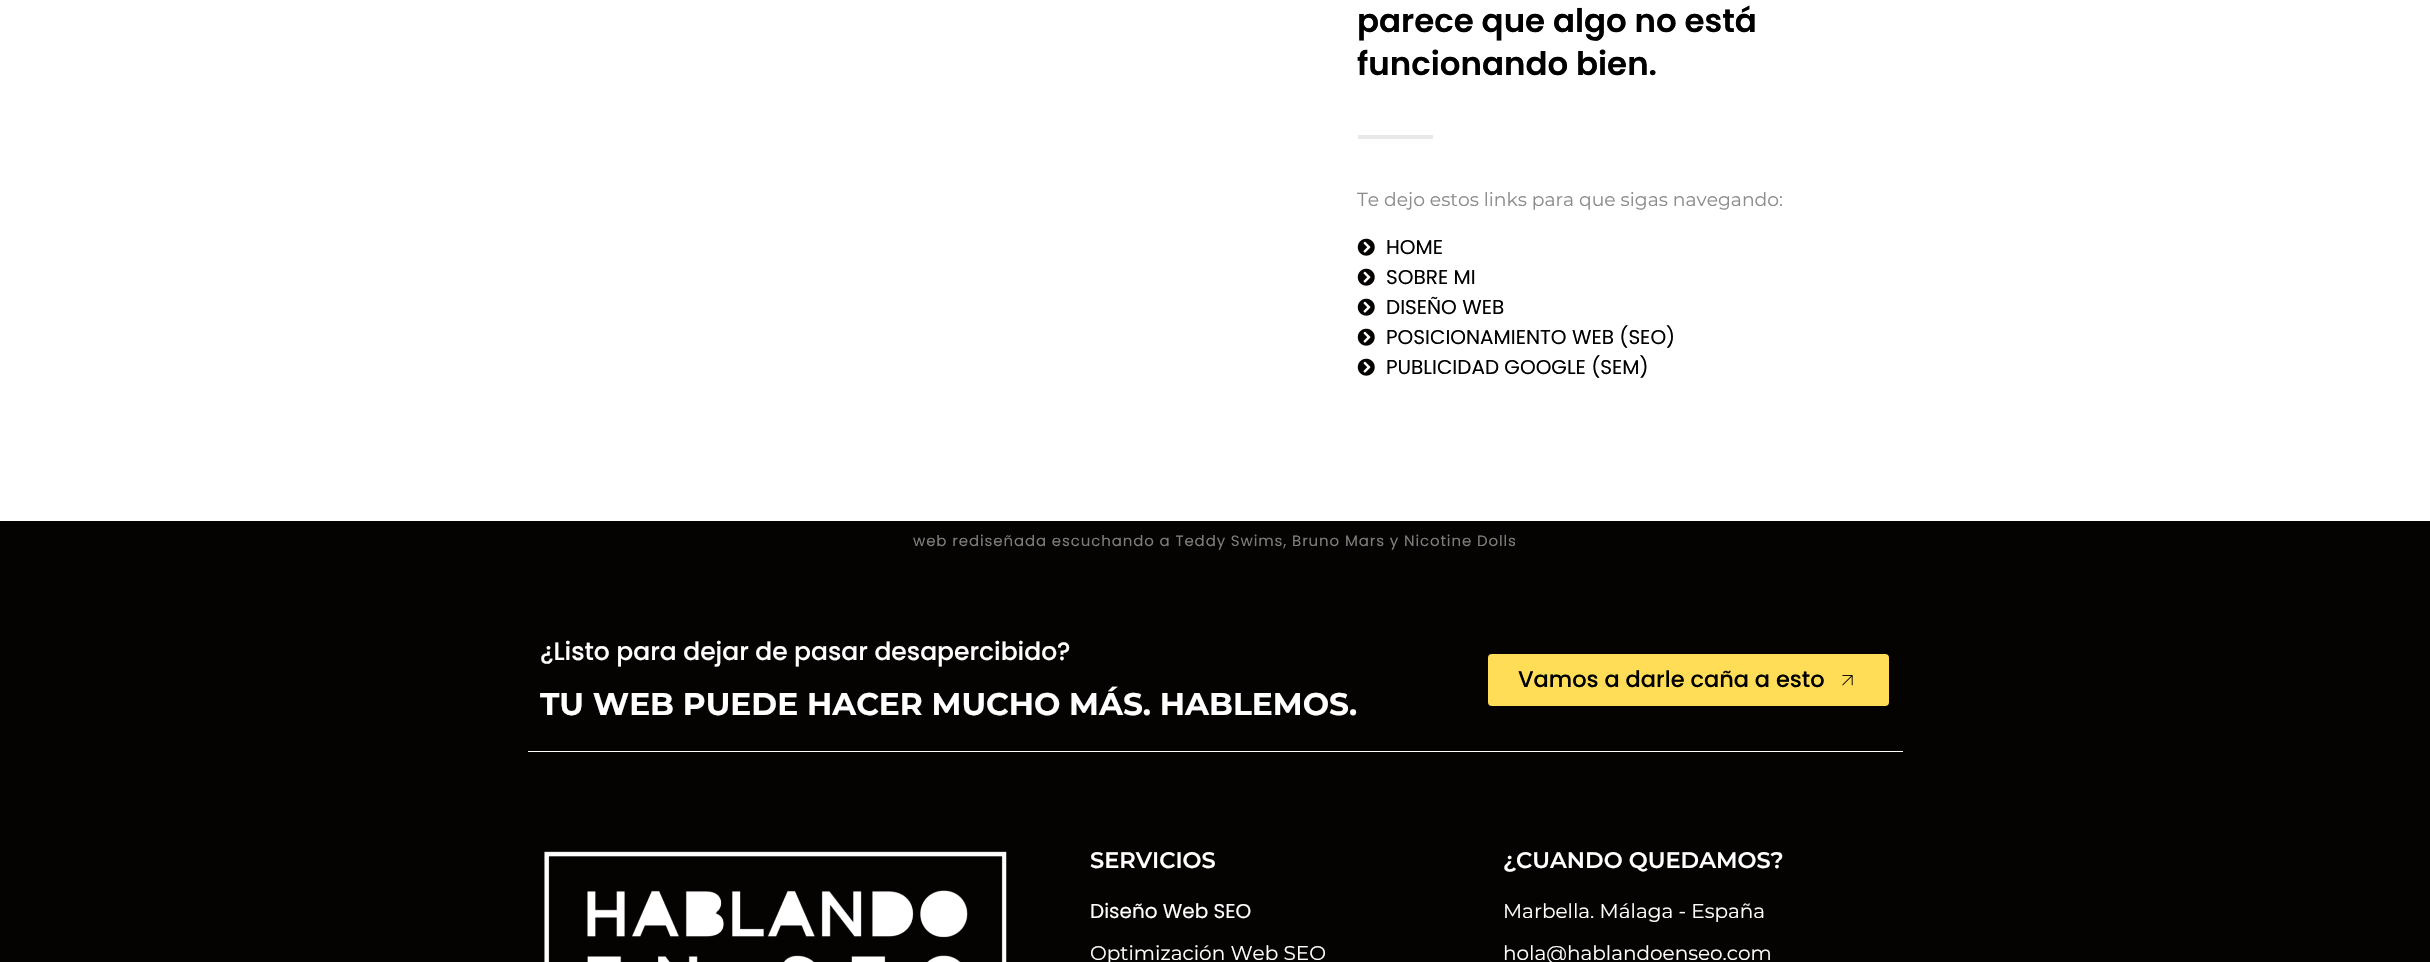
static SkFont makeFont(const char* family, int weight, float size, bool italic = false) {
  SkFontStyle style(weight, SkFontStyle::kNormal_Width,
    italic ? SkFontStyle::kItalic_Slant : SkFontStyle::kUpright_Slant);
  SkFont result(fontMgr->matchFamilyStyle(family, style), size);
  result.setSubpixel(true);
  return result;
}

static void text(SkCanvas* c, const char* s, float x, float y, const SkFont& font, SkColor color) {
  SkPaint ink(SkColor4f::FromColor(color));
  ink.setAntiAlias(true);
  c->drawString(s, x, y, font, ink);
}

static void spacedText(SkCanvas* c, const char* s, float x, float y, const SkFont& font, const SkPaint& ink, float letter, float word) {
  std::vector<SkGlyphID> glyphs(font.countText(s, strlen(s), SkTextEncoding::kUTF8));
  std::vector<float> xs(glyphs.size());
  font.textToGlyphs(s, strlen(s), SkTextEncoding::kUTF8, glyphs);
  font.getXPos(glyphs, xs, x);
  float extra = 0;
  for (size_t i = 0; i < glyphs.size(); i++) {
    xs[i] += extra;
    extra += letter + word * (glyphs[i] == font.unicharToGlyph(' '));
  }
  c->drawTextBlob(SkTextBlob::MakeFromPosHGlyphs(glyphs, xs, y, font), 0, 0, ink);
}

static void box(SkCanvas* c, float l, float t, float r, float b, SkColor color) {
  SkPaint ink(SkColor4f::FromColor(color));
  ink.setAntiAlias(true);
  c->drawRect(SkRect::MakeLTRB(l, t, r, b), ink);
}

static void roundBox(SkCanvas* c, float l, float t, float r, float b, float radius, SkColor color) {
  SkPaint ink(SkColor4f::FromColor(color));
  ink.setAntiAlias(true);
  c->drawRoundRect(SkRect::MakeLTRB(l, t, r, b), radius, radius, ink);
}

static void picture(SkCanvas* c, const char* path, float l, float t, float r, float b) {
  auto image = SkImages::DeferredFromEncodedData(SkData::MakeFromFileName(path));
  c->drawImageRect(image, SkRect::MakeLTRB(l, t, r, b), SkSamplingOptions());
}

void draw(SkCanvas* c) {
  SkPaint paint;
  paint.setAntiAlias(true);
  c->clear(0xffffffff);
  SkFont face1 = makeFont("Poppins", 600, 32.5f);
  text(c, "parece que algo no está", 1357, 32, face1, 0xff000000);
  text(c, "funcionando bien.", 1357, 75, face1, 0xff000000);
  box(c, 1358, 135, 1433, 139, 0xffe8e8e8);
  SkFont face2 = makeFont("Montserrat", 400, 18.75f);
  text(c, "Te dejo estos links para que sigas navegando:", 1357, 206, face2, 0xff8c8c8c);
  picture(c, "img_01.png", 1357, 238, 1375, 256);
  SkFont face3 = makeFont("Poppins", 400, 20);
  text(c, "HOME", 1386, 254, face3, 0xff000000);
  picture(c, "img_01.png", 1357, 268, 1375, 286);
  text(c, "SOBRE MI", 1386, 284, face3, 0xff000000);
  picture(c, "img_01.png", 1357, 298, 1375, 316);
  text(c, "DISEÑO WEB", 1386, 314, face3, 0xff000000);
  picture(c, "img_01.png", 1357, 328, 1375, 346);
  text(c, "POSICIONAMIENTO WEB (SEO)", 1386, 344, face3, 0xff000000);
  picture(c, "img_01.png", 1357, 358, 1375, 376);
  text(c, "PUBLICIDAD GOOGLE (SEM)", 1386, 374, face3, 0xff000000);
  box(c, 0, 521, 2430, 962, 0xff050202);
  SkFont face4 = makeFont("Poppins", 400, 15);
  paint.setColor(0xff7d7d7d);
  spacedText(c, "web rediseñada escuchando a Teddy Swims, Bruno Mars y Nicotine Dolls", 913, 546, face4, paint, 0.88f, 0);
  SkFont face5 = makeFont("Poppins", 500, 25);
  text(c, "¿Listo para dejar de pasar desapercibido?", 540, 660, face5, 0xffffffff);
  SkFont face6 = makeFont("Montserrat", 700, 31.25f);
  text(c, "TU WEB PUEDE HACER MUCHO MÁS. HABLEMOS.", 540, 715, face6, 0xffffffff);
  roundBox(c, 1488, 654, 1889, 706, 4, 0xffffdd57);
  SkFont face7 = makeFont("Poppins", 500, 22.5f);
  text(c, "Vamos a darle caña a esto", 1518, 687, face7, 0xff000000);
  picture(c, "img_02.png", 1842, 675, 1853, 686);
  box(c, 528, 751, 1903, 752, 0xffffffff);
  picture(c, "img_03.png", 544, 851, 1007, 962);
  SkFont face8 = makeFont("Montserrat", 600, 22.5f);
  text(c, "SERVICIOS", 1090, 868, face8, 0xffffffff);
  text(c, "Diseño Web SEO", 1090, 918, face3, 0xffffffff);
  SkFont face9 = makeFont("Montserrat", 400, 20);
  text(c, "Optimización Web SEO", 1090, 960, face9, 0xffffffff);
  text(c, "¿CUANDO QUEDAMOS?", 1503, 868, face8, 0xffffffff);
  text(c, "Marbella. Málaga - España", 1503, 918, face9, 0xffffffff);
  text(c, "hola@hablandoenseo.com", 1503, 960, face9, 0xffffffff);
}
